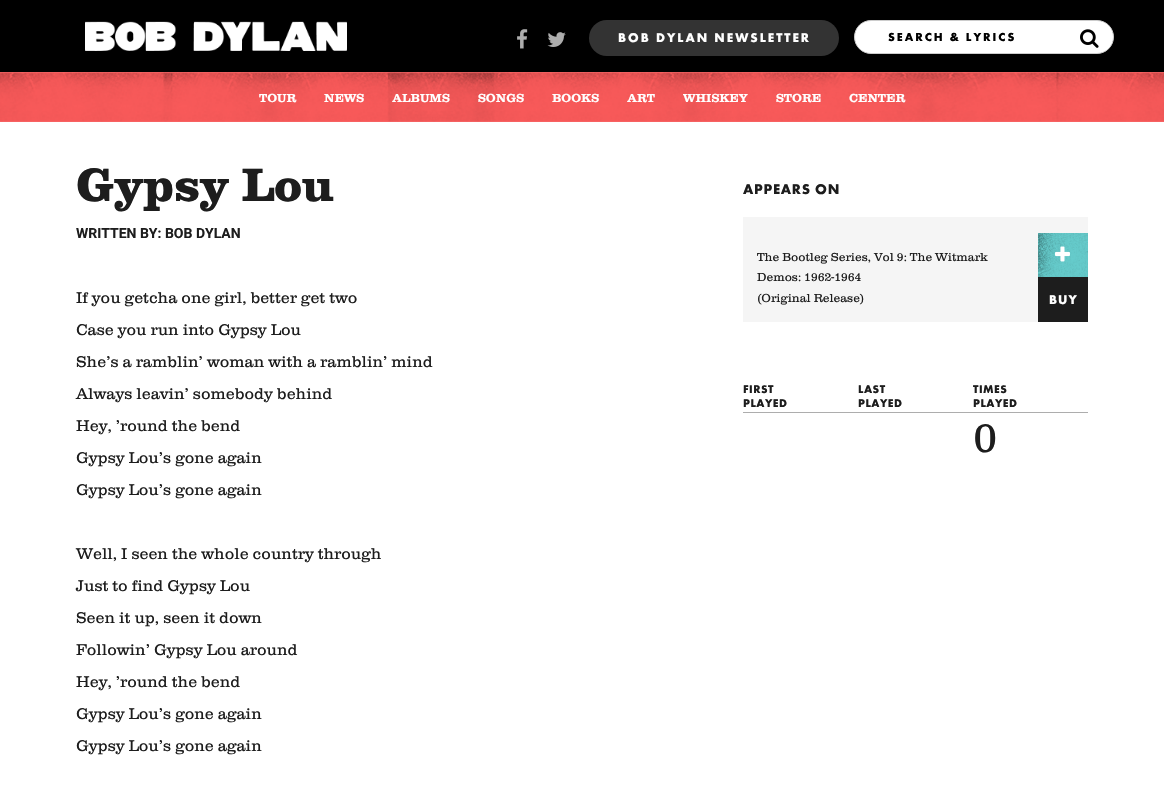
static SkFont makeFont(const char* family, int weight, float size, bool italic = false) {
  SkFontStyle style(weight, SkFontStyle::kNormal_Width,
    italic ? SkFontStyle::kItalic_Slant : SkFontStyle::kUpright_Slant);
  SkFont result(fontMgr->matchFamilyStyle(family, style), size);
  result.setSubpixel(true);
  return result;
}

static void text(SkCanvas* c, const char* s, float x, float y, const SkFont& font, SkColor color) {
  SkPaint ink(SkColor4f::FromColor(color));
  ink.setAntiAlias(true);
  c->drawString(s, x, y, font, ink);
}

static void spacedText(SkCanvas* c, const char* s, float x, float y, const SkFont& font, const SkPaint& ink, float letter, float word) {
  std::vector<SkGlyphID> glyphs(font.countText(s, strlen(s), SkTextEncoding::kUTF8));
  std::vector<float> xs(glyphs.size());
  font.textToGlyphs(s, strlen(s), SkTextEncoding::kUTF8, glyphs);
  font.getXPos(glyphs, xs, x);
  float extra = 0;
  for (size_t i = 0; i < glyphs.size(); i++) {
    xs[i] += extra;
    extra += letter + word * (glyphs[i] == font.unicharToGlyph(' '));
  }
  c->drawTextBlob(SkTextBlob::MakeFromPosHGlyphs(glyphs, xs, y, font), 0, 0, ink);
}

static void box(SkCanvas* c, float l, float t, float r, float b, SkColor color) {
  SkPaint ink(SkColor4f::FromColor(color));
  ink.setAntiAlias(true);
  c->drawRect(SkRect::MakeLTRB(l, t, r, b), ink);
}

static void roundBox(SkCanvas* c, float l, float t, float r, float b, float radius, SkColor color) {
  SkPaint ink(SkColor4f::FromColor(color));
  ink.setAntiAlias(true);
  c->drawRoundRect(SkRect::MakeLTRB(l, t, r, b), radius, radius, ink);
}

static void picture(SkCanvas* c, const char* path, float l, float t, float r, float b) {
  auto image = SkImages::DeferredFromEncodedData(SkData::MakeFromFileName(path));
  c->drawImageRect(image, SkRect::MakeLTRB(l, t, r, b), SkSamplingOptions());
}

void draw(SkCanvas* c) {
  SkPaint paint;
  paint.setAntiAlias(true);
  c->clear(0xffffffff);
  box(c, 0, 0, 1164, 72, 0xff000000);
  picture(c, "img_01.png", 85, 21, 347, 51);
  picture(c, "img_02.png", 517, 29, 528, 49);
  picture(c, "img_03.png", 547, 32, 566, 47);
  roundBox(c, 589, 20, 839, 56, 18, 0xff333333);
  SkFont face1 = makeFont("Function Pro", 700, 13);
  paint.setColor(0xffffffff);
  spacedText(c, "BOB DYLAN NEWSLETTER", 618, 42, face1, paint, 2, 0);
  c->drawRoundRect(SkRect::MakeLTRB(854.5f, 20.5f, 1113.5f, 53.5f), 16.5f, 16.5f, paint);
  paint.setStyle(SkPaint::kStroke_Style);
  paint.setStrokeWidth(1);
  paint.setColor(0xffcccccc);
  c->drawRoundRect(SkRect::MakeLTRB(854.5f, 20.5f, 1113.5f, 53.5f), 16.5f, 16.5f, paint);
  SkFont face2 = makeFont("Function Pro", 700, 12);
  paint.setStyle(SkPaint::kFill_Style);
  paint.setColor(0xff000000);
  spacedText(c, "SEARCH & LYRICS", 888, 41, face2, paint, 2, 0);
  picture(c, "img_04.png", 1080, 29, 1099, 48);
  picture(c, "img_05.png", 0, 72, 1164, 122);
  SkFont face3 = makeFont("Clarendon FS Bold", 700, 12);
  text(c, "TOUR", 259, 102, face3, 0xffffffff);
  text(c, "NEWS", 324, 102, face3, 0xffffffff);
  text(c, "ALBUMS", 392, 102, face3, 0xffffffff);
  text(c, "SONGS", 478, 102, face3, 0xffffffff);
  text(c, "BOOKS", 552, 102, face3, 0xffffffff);
  text(c, "ART", 627, 102, face3, 0xffffffff);
  text(c, "WHISKEY", 683, 102, face3, 0xffffffff);
  text(c, "STORE", 776, 102, face3, 0xffffffff);
  text(c, "CENTER", 849, 102, face3, 0xffffffff);
  SkFont face4 = makeFont("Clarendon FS", 800, 48.5f);
  text(c, "Gypsy Lou", 76, 201, face4, 0xff1d1d1d);
  SkFont face5 = makeFont("Roboto", 700, 14);
  text(c, "WRITTEN BY: BOB DYLAN", 76, 238, face5, 0xff1d1d1d);
  SkFont face6 = makeFont("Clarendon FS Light", 400, 16);
  text(c, "If you getcha one girl, better get two", 76, 303, face6, 0xff1d1d1d);
  text(c, "Case you run into Gypsy Lou", 76, 335, face6, 0xff1d1d1d);
  text(c, "She’s a ramblin’ woman with a ramblin’ mind", 76, 367, face6, 0xff1d1d1d);
  text(c, "Always leavin’ somebody behind", 76, 399, face6, 0xff1d1d1d);
  text(c, "Hey, ’round the bend", 76, 431, face6, 0xff1d1d1d);
  text(c, "Gypsy Lou’s gone again", 76, 463, face6, 0xff1d1d1d);
  text(c, "Gypsy Lou’s gone again", 76, 495, face6, 0xff1d1d1d);
  text(c, "Well, I seen the whole country through", 76, 559, face6, 0xff1d1d1d);
  text(c, "Just to find Gypsy Lou", 76, 591, face6, 0xff1d1d1d);
  text(c, "Seen it up, seen it down", 76, 623, face6, 0xff1d1d1d);
  text(c, "Followin’ Gypsy Lou around", 76, 655, face6, 0xff1d1d1d);
  text(c, "Hey, ’round the bend", 76, 687, face6, 0xff1d1d1d);
  text(c, "Gypsy Lou’s gone again", 76, 719, face6, 0xff1d1d1d);
  text(c, "Gypsy Lou’s gone again", 76, 751, face6, 0xff1d1d1d);
  SkFont face7 = makeFont("Function Pro", 700, 14.5f);
  paint.setColor(0xff1d1d1d);
  spacedText(c, "APPEARS ON", 743, 194, face7, paint, 0.75f, 0);
  box(c, 743, 217, 1088, 322, 0xfff5f5f5);
  SkFont face8 = makeFont("Clarendon FS Light", 400, 12);
  text(c, "The Bootleg Series, Vol 9: The Witmark", 757, 261, face8, 0xff1d1d1d);
  text(c, "Demos: 1962-1964", 757, 281, face8, 0xff1d1d1d);
  text(c, "(Original Release)", 757, 302, face8, 0xff1d1d1d);
  picture(c, "img_06.png", 1038, 233, 1088, 277);
  picture(c, "img_07.png", 1055, 246, 1070, 262);
  box(c, 1038, 277, 1088, 322, 0xff1d1d1d);
  paint.setColor(0xffffffff);
  spacedText(c, "BUY", 1049, 304, face1, paint, 1, 0);
  box(c, 743, 412, 1088, 413, 0xffadadad);
  SkFont face9 = makeFont("Function Pro", 700, 11.5f);
  paint.setColor(0xff1d1d1d);
  spacedText(c, "FIRST", 743, 393, face9, paint, 0.5f, 0);
  spacedText(c, "PLAYED", 743, 407, face9, paint, 0.5f, 0);
  spacedText(c, "LAST", 858, 393, face9, paint, 0.5f, 0);
  spacedText(c, "PLAYED", 858, 407, face9, paint, 0.5f, 0);
  spacedText(c, "TIMES", 973, 393, face9, paint, 0.5f, 0);
  spacedText(c, "PLAYED", 973, 407, face9, paint, 0.5f, 0);
  SkFont face10 = makeFont("Clarendon FS Light", 400, 43);
  text(c, "0", 973, 452, face10, 0xff1d1d1d);
}
